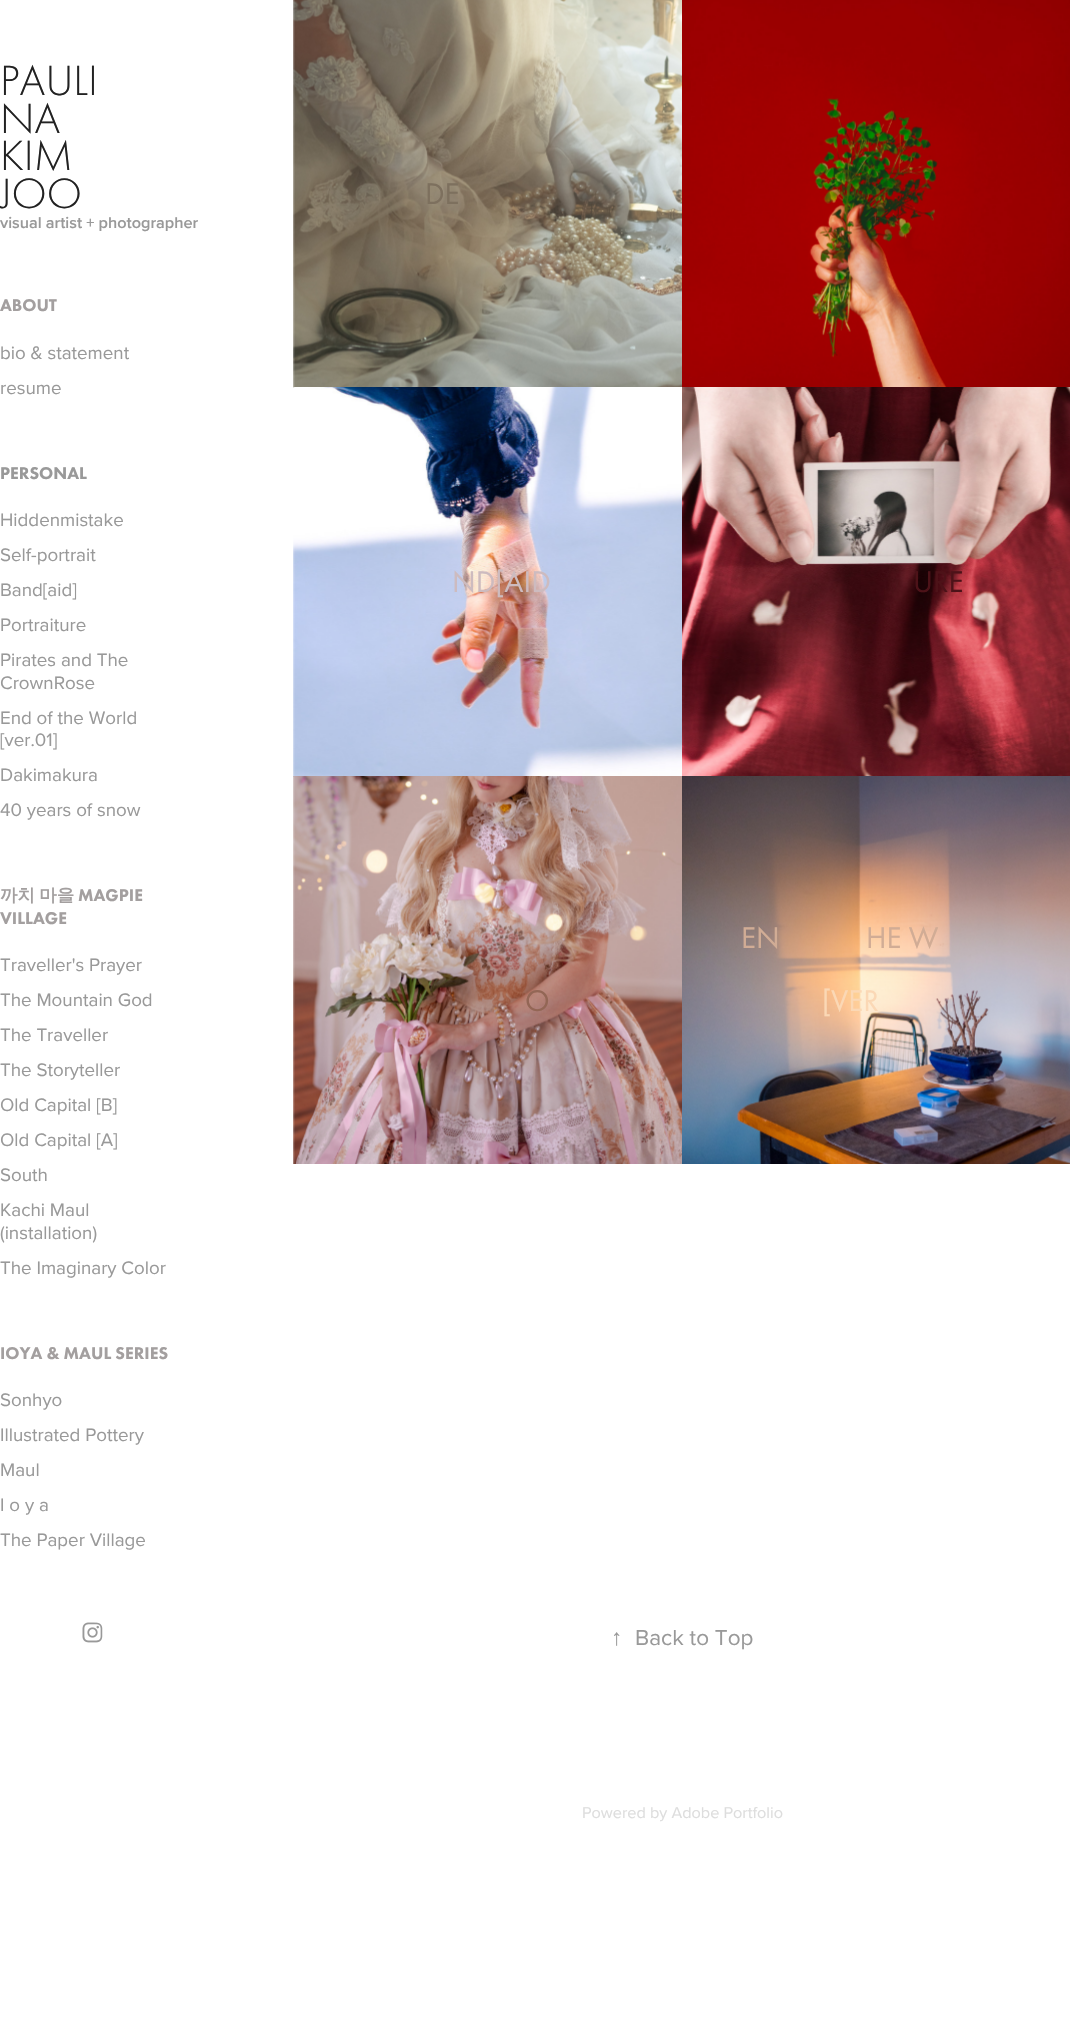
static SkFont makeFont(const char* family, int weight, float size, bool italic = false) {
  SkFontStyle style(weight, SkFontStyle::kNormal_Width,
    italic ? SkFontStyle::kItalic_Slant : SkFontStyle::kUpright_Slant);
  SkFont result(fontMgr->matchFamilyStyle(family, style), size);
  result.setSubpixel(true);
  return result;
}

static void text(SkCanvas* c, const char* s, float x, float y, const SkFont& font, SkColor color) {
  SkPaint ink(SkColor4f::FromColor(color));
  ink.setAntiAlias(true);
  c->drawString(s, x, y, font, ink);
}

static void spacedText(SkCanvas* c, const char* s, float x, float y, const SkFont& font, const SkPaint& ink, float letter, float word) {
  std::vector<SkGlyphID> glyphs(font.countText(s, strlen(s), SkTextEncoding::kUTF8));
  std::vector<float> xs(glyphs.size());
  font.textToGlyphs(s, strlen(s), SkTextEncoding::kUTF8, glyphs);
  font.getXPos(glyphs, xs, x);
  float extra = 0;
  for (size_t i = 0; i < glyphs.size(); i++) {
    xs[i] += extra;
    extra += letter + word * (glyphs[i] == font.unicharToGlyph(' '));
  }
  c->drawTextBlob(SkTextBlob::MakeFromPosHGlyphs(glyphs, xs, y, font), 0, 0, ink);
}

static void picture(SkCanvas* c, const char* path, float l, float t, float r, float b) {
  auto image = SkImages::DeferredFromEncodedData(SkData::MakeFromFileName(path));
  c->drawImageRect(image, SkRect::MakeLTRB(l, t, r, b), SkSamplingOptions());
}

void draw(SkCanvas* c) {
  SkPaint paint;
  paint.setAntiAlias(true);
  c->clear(0xffffffff);
  SkFont face1 = makeFont("Futura PT", 300, 44);
  text(c, "PAULI", 0, 95, face1, 0xff222222);
  text(c, "NA", 0, 133, face1, 0xff222222);
  text(c, "KIM", 0, 170, face1, 0xff222222);
  text(c, "JOO", 0, 208, face1, 0xff222222);
  SkFont face2 = makeFont("Proxima Nova", 600, 16.25f);
  text(c, "visual artist + photographer", 0, 228, face2, 0xff999999);
  SkFont face3 = makeFont("Futura PT", 900, 17.5f);
  text(c, "ABOUT", 0, 311, face3, 0xffa39f9f);
  SkFont face4 = makeFont("Proxima Nova", 400, 18.75f);
  text(c, "bio & statement", 0, 359, face4, 0xff999999);
  text(c, "resume", 0, 394, face4, 0xff999999);
  text(c, "PERSONAL", 0, 479, face3, 0xff999999);
  text(c, "Hiddenmistake", 0, 526, face4, 0xff999999);
  text(c, "Self-portrait", 0, 561, face4, 0xff999999);
  text(c, "Band[aid]", 0, 596, face4, 0xff999999);
  text(c, "Portraiture", 0, 631, face4, 0xff999999);
  text(c, "Pirates and The", 0, 666, face4, 0xff999999);
  text(c, "CrownRose", 0, 689, face4, 0xff999999);
  text(c, "End of the World", 0, 724, face4, 0xff999999);
  text(c, "[ver.01]", 0, 746, face4, 0xff999999);
  text(c, "Dakimakura", 0, 781, face4, 0xff999999);
  text(c, "40 years of snow", 0, 816, face4, 0xff999999);
  SkFont face5 = makeFont("WenQuanYi Zen Hei", 700, 17.5f);
  paint.setColor(0xffa39f9f);
  spacedText(c, "까치 마을", 0, 901, face5, paint, 0, -1);
  text(c, "MAGPIE", 78, 901, face3, 0xffa39f9f);
  text(c, "VILLAGE", 0, 924, face3, 0xffa39f9f);
  text(c, "Traveller's Prayer", 0, 971, face4, 0xff999999);
  text(c, "The Mountain God", 0, 1006, face4, 0xff999999);
  text(c, "The Traveller", 0, 1041, face4, 0xff999999);
  text(c, "The Storyteller", 0, 1076, face4, 0xff999999);
  text(c, "Old Capital [B]", 0, 1111, face4, 0xff999999);
  text(c, "Old Capital [A]", 0, 1146, face4, 0xff999999);
  text(c, "South", 0, 1181, face4, 0xff999999);
  text(c, "Kachi Maul", 0, 1216, face4, 0xff999999);
  text(c, "(installation)", 0, 1239, face4, 0xff999999);
  text(c, "The Imaginary Color", 0, 1274, face4, 0xff999999);
  text(c, "IOYA & MAUL SERIES", 0, 1359, face3, 0xffa39f9f);
  text(c, "Sonhyo", 0, 1406, face4, 0xff999999);
  text(c, "Illustrated Pottery", 0, 1441, face4, 0xff999999);
  text(c, "Maul", 0, 1476, face4, 0xff999999);
  text(c, "I o y a", 0, 1511, face4, 0xff999999);
  text(c, "The Paper Village", 0, 1546, face4, 0xff999999);
  picture(c, "img_01.png", 82, 1622, 103, 1643);
  picture(c, "img_02.png", 293, 0, 682, 388);
  SkFont face6 = makeFont("Futura PT", 400, 31);
  text(c, "DE", 425, 204, face6, 0xff7d705e);
  picture(c, "img_03.png", 682, 0, 1070, 387);
  picture(c, "img_04.png", 293, 387, 682, 777);
  text(c, "ND[AID", 452, 592, face6, 0xffcdbbbf);
  picture(c, "img_05.png", 682, 387, 1070, 776);
  text(c, "URE", 913, 592, face6, 0xff4d1218);
  picture(c, "img_06.png", 293, 776, 682, 1164);
  text(c, "O", 525, 1011, face6, 0xff936655);
  picture(c, "img_07.png", 682, 776, 1070, 1164);
  text(c, "EN", 741, 948, face6, 0xffd1ac95);
  text(c, "HE W", 866, 948, face6, 0xffd1ac95);
  text(c, "[VER", 822, 1011, face6, 0xfffbd8b5);
  SkFont face7 = makeFont("Liberation Serif", 400, 22.5f);
  text(c, "↑", 611, 1645, face7, 0xff999999);
  SkFont face8 = makeFont("Proxima Nova", 400, 22.5f);
  text(c, "Back to Top", 635, 1645, face8, 0xff999999);
  SkFont face9 = makeFont("Proxima Nova", 400, 16.25f);
  text(c, "Powered by Adobe Portfolio", 582, 1818, face9, 0xffdddddd);
}
